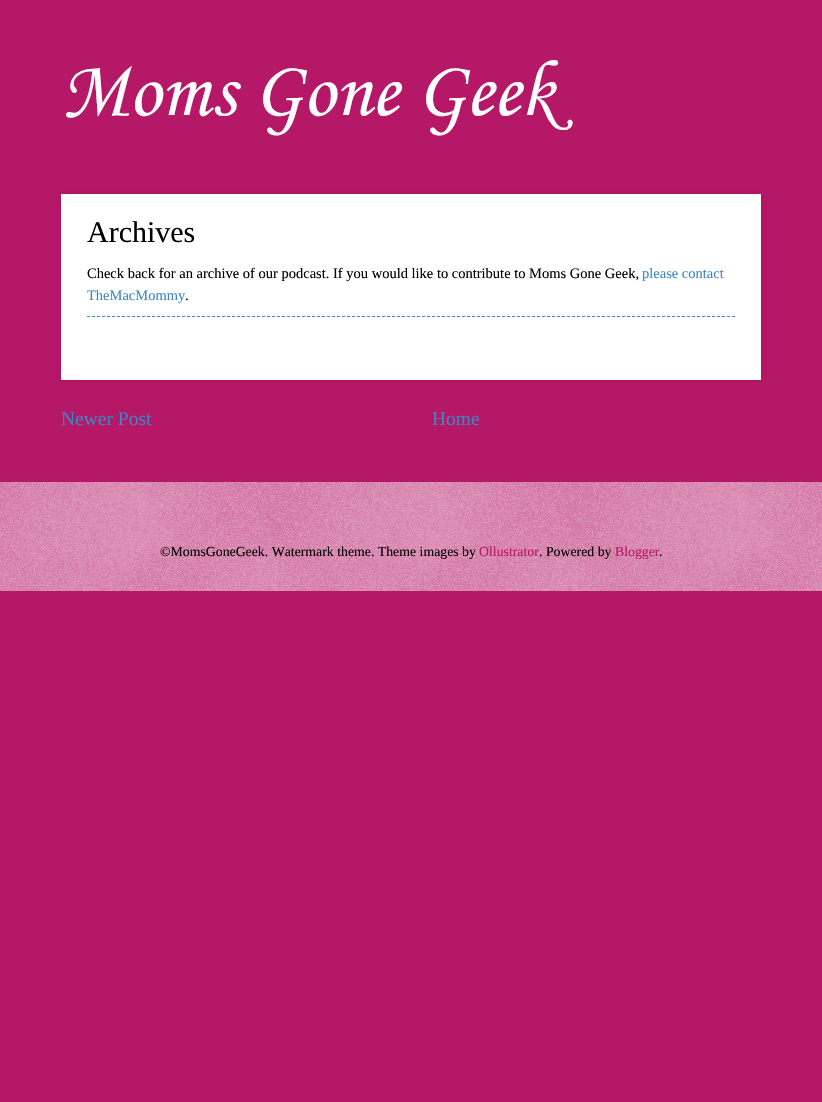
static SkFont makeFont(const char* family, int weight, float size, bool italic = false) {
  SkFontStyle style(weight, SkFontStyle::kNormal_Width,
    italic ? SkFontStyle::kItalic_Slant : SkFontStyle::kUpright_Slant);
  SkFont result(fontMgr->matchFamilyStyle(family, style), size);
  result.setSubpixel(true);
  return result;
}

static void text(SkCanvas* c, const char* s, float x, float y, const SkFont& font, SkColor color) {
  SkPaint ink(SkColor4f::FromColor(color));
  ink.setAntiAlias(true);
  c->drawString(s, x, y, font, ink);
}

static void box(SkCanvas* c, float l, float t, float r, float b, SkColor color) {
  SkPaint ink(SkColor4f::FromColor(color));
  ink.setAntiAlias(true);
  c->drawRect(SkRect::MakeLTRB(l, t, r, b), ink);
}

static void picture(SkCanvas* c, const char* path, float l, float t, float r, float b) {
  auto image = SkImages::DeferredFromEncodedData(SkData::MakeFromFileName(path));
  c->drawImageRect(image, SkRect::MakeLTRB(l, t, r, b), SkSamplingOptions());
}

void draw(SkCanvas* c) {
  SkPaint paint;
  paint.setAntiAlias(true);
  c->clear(0xffb51866);
  SkFont face1 = makeFont("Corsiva", 400, 80);
  text(c, "Moms Gone Geek", 61, 115, face1, 0xffffffff);
  paint.setColor(0x1a000000);
  paint.setMaskFilter(SkMaskFilter::MakeBlur(kNormal_SkBlurStyle, 2.5f));
  c->drawRect(SkRect::MakeLTRB(61, 194, 761, 380), paint);
  paint.setMaskFilter(nullptr);
  box(c, 61, 194, 761, 380, 0xffffffff);
  SkFont face2 = makeFont("Liberation Serif", 400, 30);
  text(c, "Archives", 87, 242, face2, 0xff000000);
  SkFont face3 = makeFont("Liberation Serif", 400, 14.5f);
  text(c, "Check back for an archive of our podcast. If you would like to contribute to Moms Gone Geek,", 87, 278, face3, 0xff000000);
  text(c, "please contact", 642, 278, face3, 0xff3d85c6);
  text(c, "TheMacMommy", 87, 300, face3, 0xff3d85c6);
  text(c, ".", 185, 300, face3, 0xff000000);
  paint.setStyle(SkPaint::kStroke_Style);
  paint.setStrokeWidth(1);
  paint.setColor(0xff3d85c6);
  paint.setPathEffect(SkDashPathEffect::Make({{3, 2}}, 0));
  c->drawPath(SkPathBuilder().moveTo(87, 316.5f).lineTo(735, 316.5f).detach(), paint);
  paint.setPathEffect(nullptr);
  SkFont face4 = makeFont("Liberation Serif", 400, 19.5f);
  text(c, "Newer Post", 61, 425, face4, 0xff3d85c6);
  text(c, "Home", 432, 425, face4, 0xff3d85c6);
  picture(c, "img_01.png", 0, 482, 822, 591);
  SkFont face5 = makeFont("Liberation Serif", 400, 13.8f);
  text(c, "©MomsGoneGeek. Watermark theme. Theme images by", 160, 556, face5, 0xff000000);
  text(c, "Ollustrator", 479, 556, face5, 0xffb51866);
  text(c, ". Powered by", 539, 556, face5, 0xff000000);
  text(c, "Blogger", 615, 556, face5, 0xffb51866);
  text(c, ".", 659, 556, face5, 0xff000000);
}
